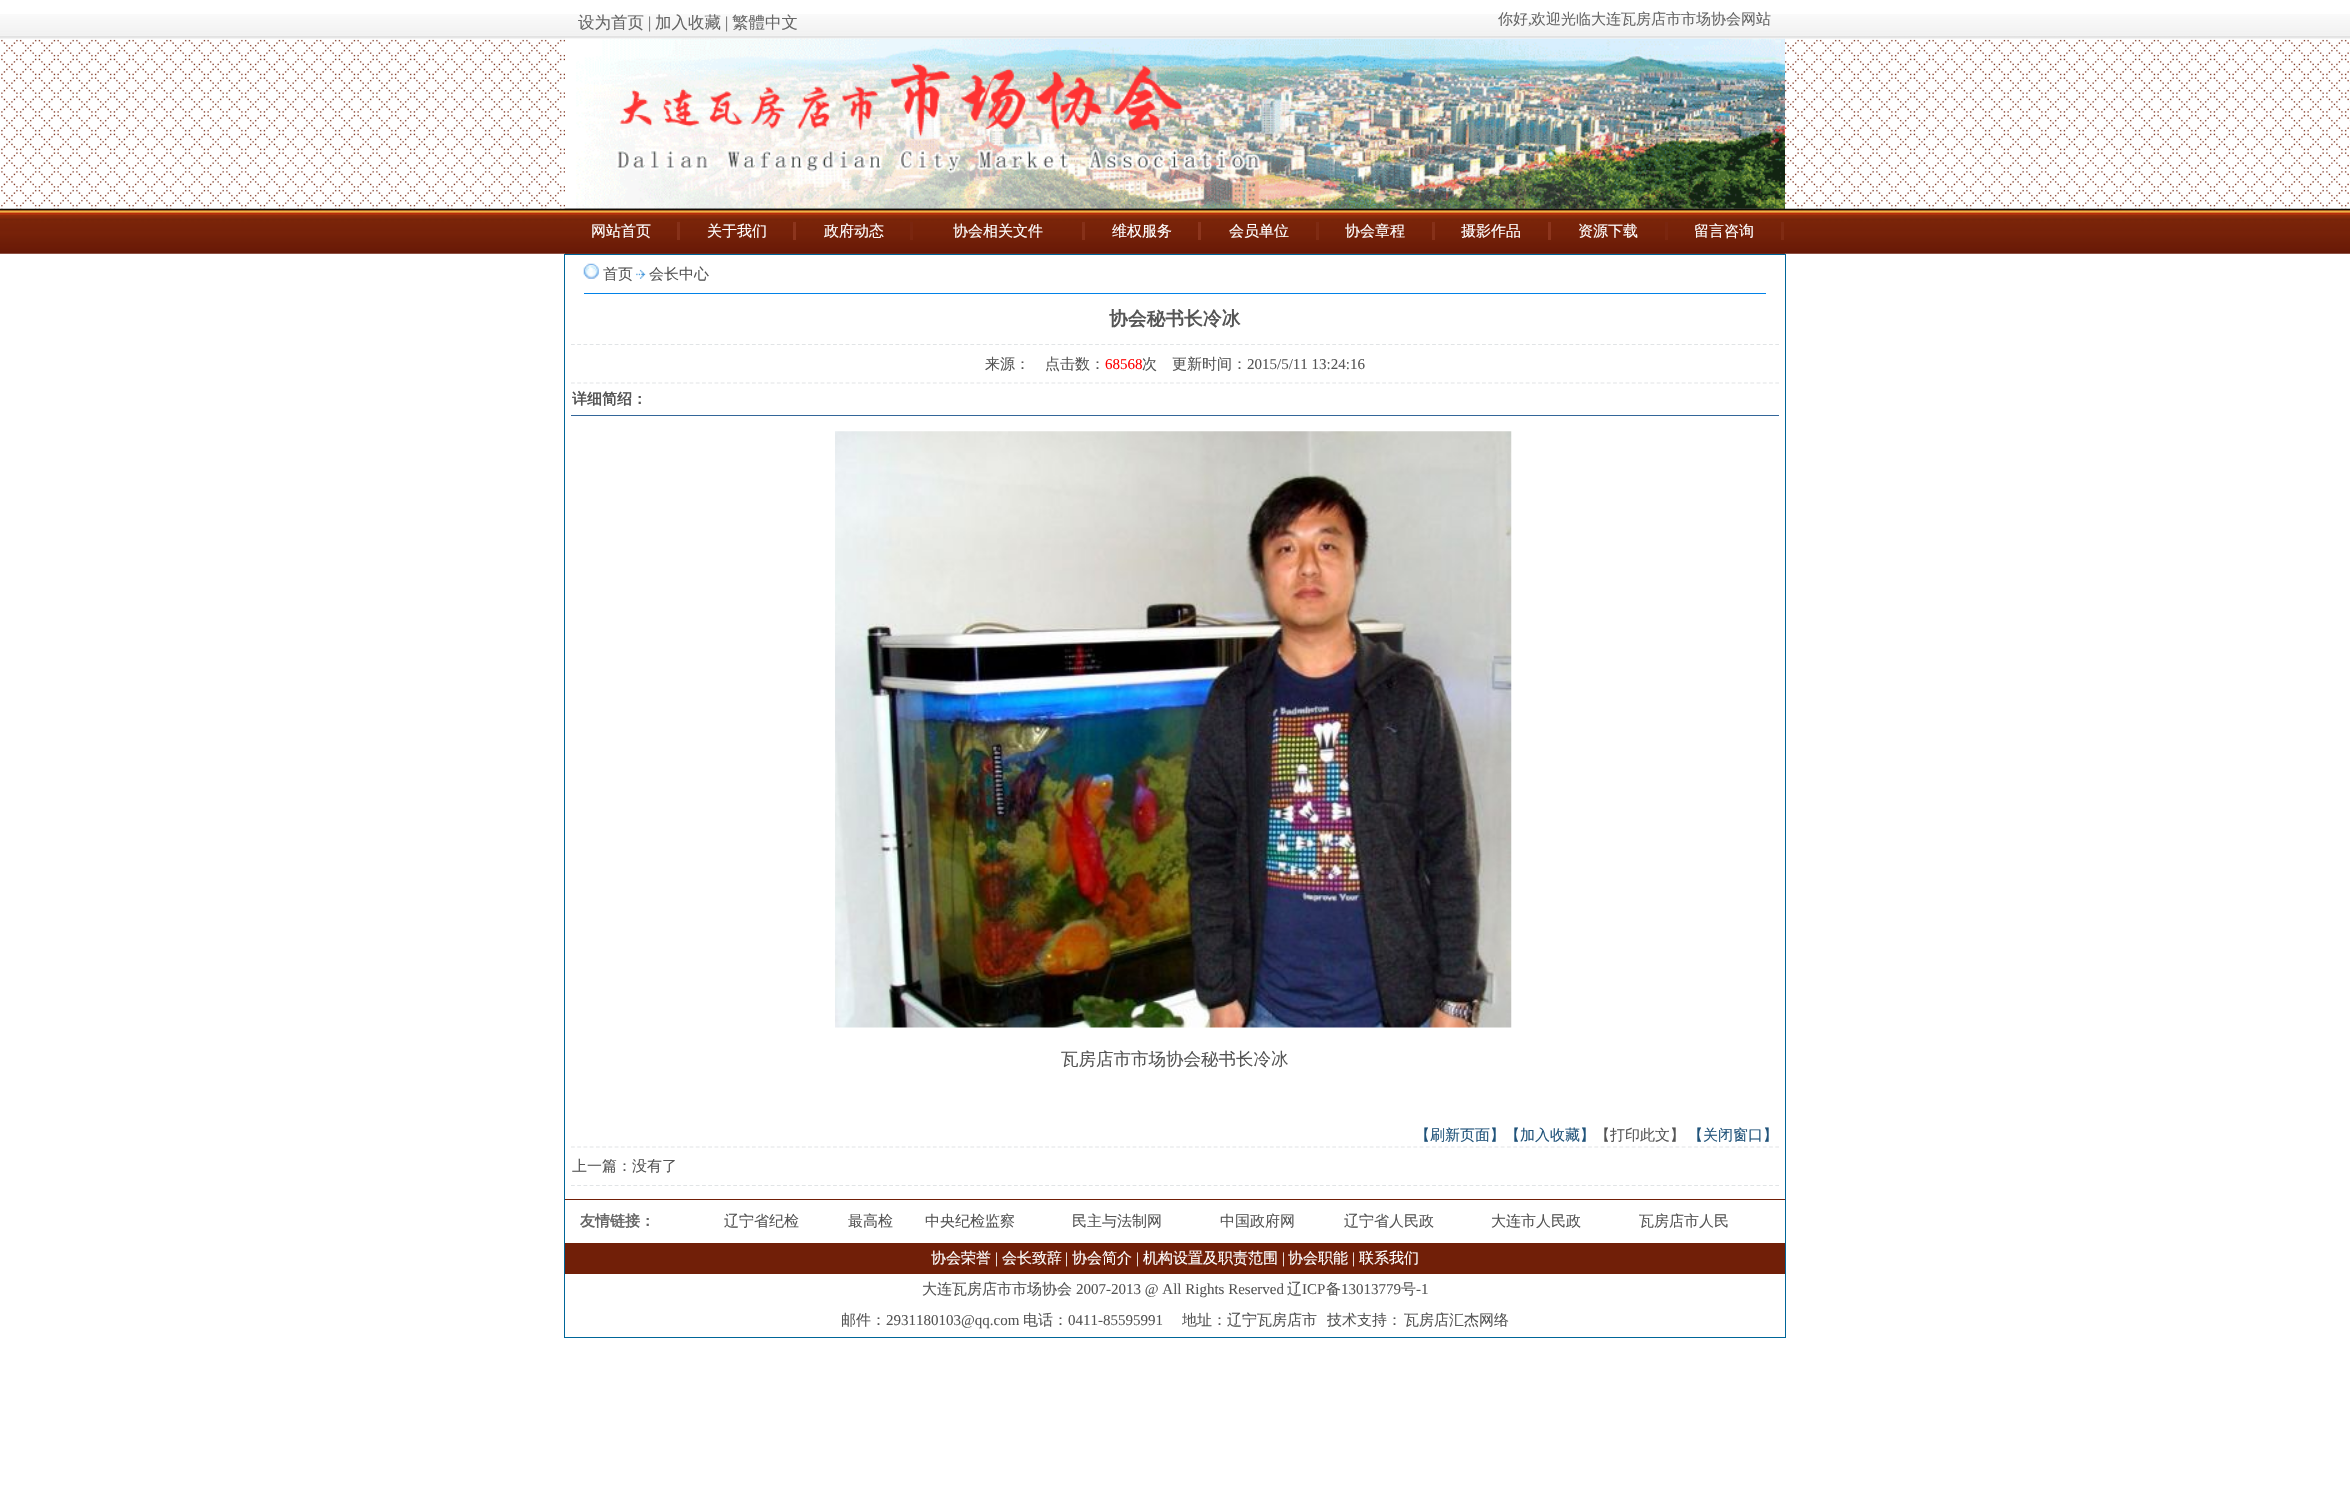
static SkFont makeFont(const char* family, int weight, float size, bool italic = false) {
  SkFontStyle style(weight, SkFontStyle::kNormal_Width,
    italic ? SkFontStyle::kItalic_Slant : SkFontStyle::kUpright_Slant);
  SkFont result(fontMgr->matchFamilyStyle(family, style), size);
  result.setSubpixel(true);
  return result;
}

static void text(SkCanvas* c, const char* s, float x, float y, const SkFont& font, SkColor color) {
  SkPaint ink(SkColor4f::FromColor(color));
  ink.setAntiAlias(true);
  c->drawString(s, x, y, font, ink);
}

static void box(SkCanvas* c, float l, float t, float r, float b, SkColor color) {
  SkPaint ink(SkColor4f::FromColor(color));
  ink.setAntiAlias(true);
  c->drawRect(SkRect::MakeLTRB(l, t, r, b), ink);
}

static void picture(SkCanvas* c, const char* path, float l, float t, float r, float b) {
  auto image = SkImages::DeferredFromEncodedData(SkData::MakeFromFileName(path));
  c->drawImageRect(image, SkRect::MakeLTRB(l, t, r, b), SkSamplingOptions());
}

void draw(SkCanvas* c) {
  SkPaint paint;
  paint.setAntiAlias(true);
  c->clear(0xffffffff);
  picture(c, "img_01.png", 0, 14, 2350, 39);
  SkFont face1 = makeFont("WenQuanYi Zen Hei", 500, 16.5f);
  text(c, "设为首页", 578, 28, face1, 0xff666666);
  SkFont face2 = makeFont("Liberation Serif", 400, 16.5f);
  text(c, "|", 648, 28, face2, 0xff666666);
  text(c, "加入收藏", 655, 28, face1, 0xff666666);
  text(c, "|", 725, 28, face2, 0xff666666);
  text(c, "繁體中文", 732, 28, face1, 0xff666666);
  SkFont face3 = makeFont("WenQuanYi Zen Hei", 500, 15);
  text(c, "你好", 1498, 24, face3, 0xff666666);
  SkFont face4 = makeFont("Liberation Serif", 400, 15);
  text(c, ",", 1528, 24, face4, 0xff666666);
  text(c, "欢迎光临大连瓦房店市市场协会网站", 1531, 24, face3, 0xff666666);
  picture(c, "img_02.png", 1, 39, 2350, 209);
  picture(c, "img_03.png", 565, 38, 1785, 209);
  picture(c, "img_04.png", 0, 208, 2350, 254);
  picture(c, "img_05.png", 565, 208, 1785, 254);
  text(c, "网站首页", 591, 236, face3, 0xffffffff);
  box(c, 677, 222, 680, 240, 0xff863119);
  text(c, "关于我们", 707, 236, face3, 0xffffffff);
  box(c, 793, 222, 796, 240, 0xff8c351d);
  text(c, "政府动态", 824, 236, face3, 0xffffffff);
  box(c, 910, 222, 913, 240, 0xff7a260f);
  text(c, "协会相关文件", 953, 236, face3, 0xffffffff);
  box(c, 1082, 222, 1085, 240, 0xff863119);
  text(c, "维权服务", 1112, 236, face3, 0xffffffff);
  box(c, 1198, 222, 1201, 240, 0xff8c351d);
  text(c, "会员单位", 1229, 236, face3, 0xffffffff);
  box(c, 1316, 222, 1319, 240, 0xff7f2b13);
  text(c, "协会章程", 1345, 236, face3, 0xffffffff);
  box(c, 1432, 222, 1435, 240, 0xff863119);
  text(c, "摄影作品", 1461, 236, face3, 0xffffffff);
  box(c, 1548, 222, 1551, 240, 0xff8c351d);
  text(c, "资源下载", 1578, 236, face3, 0xffffffff);
  box(c, 1665, 222, 1668, 240, 0xff7a260f);
  text(c, "留言咨询", 1694, 236, face3, 0xffffffff);
  box(c, 1781, 222, 1784, 240, 0xff7f2b13);
  paint.setStyle(SkPaint::kStroke_Style);
  paint.setStrokeWidth(1);
  paint.setColor(0xff006699);
  c->drawRect(SkRect::MakeLTRB(564.5f, 254.5f, 1785.5f, 1337.5f), paint);
  box(c, 584, 293, 1766, 294, 0xff0182e8);
  picture(c, "img_06.png", 583, 263, 599, 279);
  text(c, "首页", 603, 279, face3, 0xff555555);
  picture(c, "img_07.png", 636, 269, 646, 279);
  text(c, "会长中心", 649, 279, face3, 0xff555555);
  SkFont face5 = makeFont("WenQuanYi Zen Hei", 700, 18.75f);
  text(c, "协会秘书长冷冰", 1109, 325, face5, 0xff555555);
  paint.setStrokeWidth(1.2f);
  paint.setColor(0xffe1e4e6);
  paint.setPathEffect(SkDashPathEffect::Make({{3.75f, 2.49f}}, 0));
  c->drawPath(SkPathBuilder().moveTo(571, 344.5f).lineTo(1779, 344.5f).detach(), paint);
  paint.setPathEffect(nullptr);
  paint.setPathEffect(SkDashPathEffect::Make({{3.75f, 2.49f}}, 0));
  c->drawPath(SkPathBuilder().moveTo(571, 383).lineTo(1779, 383).detach(), paint);
  paint.setPathEffect(nullptr);
  text(c, "来源：　点击数：", 985, 369, face3, 0xff555555);
  text(c, "68568", 1105, 369, face4, 0xffff0000);
  text(c, "次　更新时间：", 1142, 369, face3, 0xff555555);
  text(c, "2015/5/11 13:24:16", 1247, 369, face4, 0xff555555);
  box(c, 571, 415, 1779, 416, 0xff336699);
  SkFont face6 = makeFont("WenQuanYi Zen Hei", 700, 15);
  text(c, "详细简绍：", 572, 404, face6, 0xff555555);
  picture(c, "img_08.png", 835, 431, 1512, 1028);
  SkFont face7 = makeFont("WenQuanYi Zen Hei", 500, 17.5f);
  text(c, "瓦房店市市场协会秘书长冷冰", 1061, 1065, face7, 0xff555555);
  text(c, "【刷新页面】【加入收藏】", 1415, 1140, face3, 0xff20537a);
  text(c, "【打印此文】", 1595, 1140, face3, 0xff555555);
  text(c, "【关闭窗口】", 1688, 1140, face3, 0xff20537a);
  paint.setPathEffect(SkDashPathEffect::Make({{3.75f, 2.49f}}, 0));
  c->drawPath(SkPathBuilder().moveTo(571, 1147).lineTo(1779, 1147).detach(), paint);
  paint.setPathEffect(nullptr);
  paint.setPathEffect(SkDashPathEffect::Make({{3.75f, 2.49f}}, 0));
  c->drawPath(SkPathBuilder().moveTo(571, 1185.5f).lineTo(1779, 1185.5f).detach(), paint);
  paint.setPathEffect(nullptr);
  text(c, "上一篇：没有了", 572, 1171, face3, 0xff555555);
  box(c, 565, 1199, 1785, 1200, 0xff711f08);
  text(c, "友情链接：", 580, 1226, face6, 0xff666666);
  text(c, "辽宁省纪检", 724, 1226, face3, 0xff555555);
  text(c, "最高检", 848, 1226, face3, 0xff555555);
  text(c, "中央纪检监察", 925, 1226, face3, 0xff555555);
  text(c, "民主与法制网", 1072, 1226, face3, 0xff555555);
  text(c, "中国政府网", 1220, 1226, face3, 0xff555555);
  text(c, "辽宁省人民政", 1344, 1226, face3, 0xff555555);
  text(c, "大连市人民政", 1491, 1226, face3, 0xff555555);
  text(c, "瓦房店市人民", 1639, 1226, face3, 0xff555555);
  box(c, 565, 1243, 1785, 1274, 0xff711f08);
  text(c, "协会荣誉", 931, 1263, face3, 0xffffffff);
  text(c, "|", 995, 1263, face4, 0xffffffff);
  text(c, "会长致辞", 1002, 1263, face3, 0xffffffff);
  text(c, "|", 1065, 1263, face4, 0xffffffff);
  text(c, "协会简介", 1072, 1263, face3, 0xffffffff);
  text(c, "|", 1136, 1263, face4, 0xffffffff);
  text(c, "机构设置及职责范围", 1143, 1263, face3, 0xffffffff);
  text(c, "|", 1282, 1263, face4, 0xffffffff);
  text(c, "协会职能", 1288, 1263, face3, 0xffffffff);
  text(c, "|", 1352, 1263, face4, 0xffffffff);
  text(c, "联系我们", 1359, 1263, face3, 0xffffffff);
  text(c, "大连瓦房店市市场协会", 922, 1294, face3, 0xff555555);
  text(c, "2007-2013 @ All Rights Reserved", 1076, 1294, face4, 0xff555555);
  text(c, "辽", 1287, 1294, face3, 0xff555555);
  text(c, "ICP", 1302, 1294, face4, 0xff555555);
  text(c, "备", 1326, 1294, face3, 0xff555555);
  text(c, "13013779", 1341, 1294, face4, 0xff555555);
  text(c, "号", 1401, 1294, face3, 0xff555555);
  text(c, "-1", 1416, 1294, face4, 0xff555555);
  text(c, "邮件：", 841, 1325, face3, 0xff555555);
  text(c, "2931180103@qq.com", 886, 1325, face4, 0xff555555);
  text(c, "电话：", 1023, 1325, face3, 0xff555555);
  text(c, "0411-85595991", 1068, 1325, face4, 0xff555555);
  text(c, "地址：辽宁瓦房店市", 1182, 1325, face3, 0xff555555);
  text(c, "技术支持：", 1327, 1325, face3, 0xff555555);
  text(c, "瓦房店汇杰网络", 1404, 1325, face3, 0xff555555);
}
